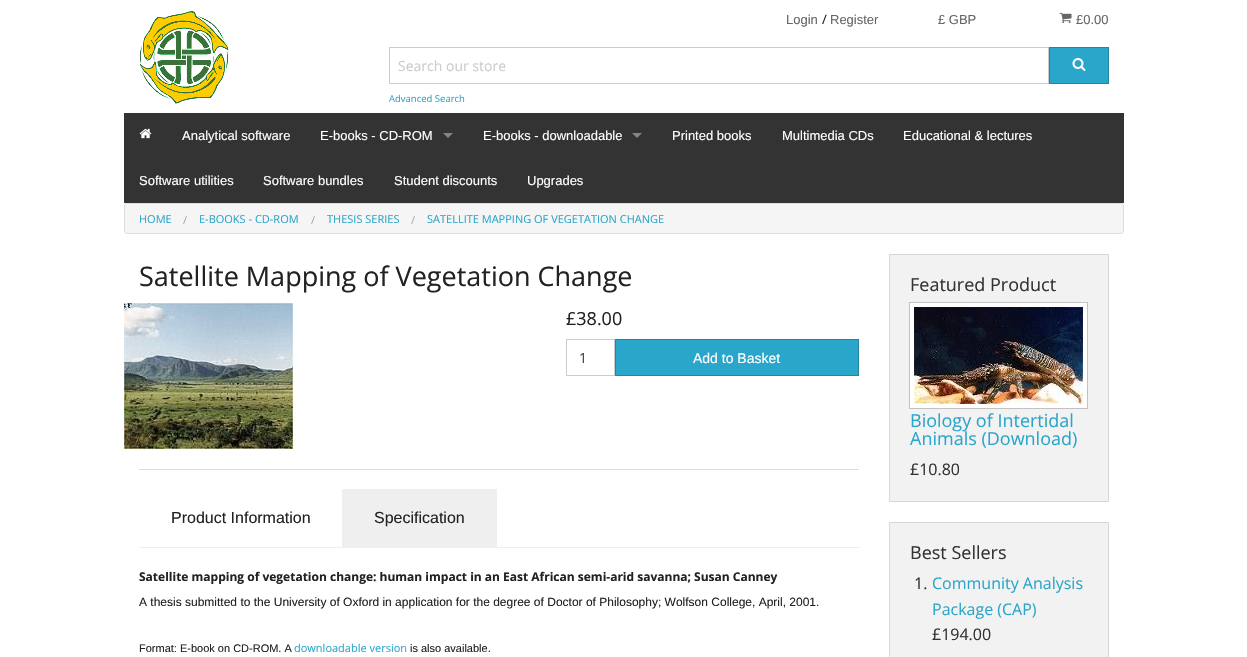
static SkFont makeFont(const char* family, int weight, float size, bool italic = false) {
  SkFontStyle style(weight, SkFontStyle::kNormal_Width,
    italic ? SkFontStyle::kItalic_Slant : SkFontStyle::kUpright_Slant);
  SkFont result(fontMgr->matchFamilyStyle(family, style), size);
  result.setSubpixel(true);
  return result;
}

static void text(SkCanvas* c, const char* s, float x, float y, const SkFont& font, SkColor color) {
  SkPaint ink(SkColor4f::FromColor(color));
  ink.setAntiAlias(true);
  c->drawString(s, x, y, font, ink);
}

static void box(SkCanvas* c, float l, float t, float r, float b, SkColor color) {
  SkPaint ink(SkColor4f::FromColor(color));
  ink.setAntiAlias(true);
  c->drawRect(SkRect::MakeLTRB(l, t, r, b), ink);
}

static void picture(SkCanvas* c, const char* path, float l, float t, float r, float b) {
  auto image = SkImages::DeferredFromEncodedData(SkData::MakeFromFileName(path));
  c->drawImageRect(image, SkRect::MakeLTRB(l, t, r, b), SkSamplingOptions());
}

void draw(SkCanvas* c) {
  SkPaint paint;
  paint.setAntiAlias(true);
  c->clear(0xffffffff);
  picture(c, "img_01.png", 139, 11, 229, 104);
  SkFont face1 = makeFont("Liberation Sans", 400, 13);
  text(c, "Login", 786, 24, face1, 0xff666666);
  SkFont face2 = makeFont("Open Sans", 400, 13);
  text(c, "/", 822, 24, face2, 0xff222222);
  text(c, "Register", 830, 24, face1, 0xff666666);
  text(c, "£ GBP", 938, 24, face1, 0xff666666);
  picture(c, "img_02.png", 1059, 12, 1072, 23);
  text(c, "£0.00", 1076, 24, face1, 0xff666666);
  paint.setStyle(SkPaint::kStroke_Style);
  paint.setStrokeWidth(1);
  paint.setColor(0xffcccccc);
  c->drawRect(SkRect::MakeLTRB(389.5f, 47.5f, 1048.5f, 83.5f), paint);
  SkFont face3 = makeFont("Open Sans", 400, 14);
  text(c, "Search our store", 398, 71, face3, 0xffcccccc);
  SkFont face4 = makeFont("Open Sans", 400, 9.5f);
  text(c, "Advanced Search", 389, 102, face4, 0xff2ba6cb);
  paint.setStyle(SkPaint::kFill_Style);
  paint.setColor(0xff2ba6cb);
  c->drawRect(SkRect::MakeLTRB(1049.5f, 47.5f, 1108.5f, 83.5f), paint);
  paint.setStyle(SkPaint::kStroke_Style);
  paint.setColor(0xff2285a2);
  c->drawRect(SkRect::MakeLTRB(1049.5f, 47.5f, 1108.5f, 83.5f), paint);
  picture(c, "img_03.png", 1072, 58, 1086, 71);
  box(c, 124, 113, 1124, 203, 0xff333333);
  picture(c, "img_04.png", 139, 128, 152, 139);
  text(c, "Analytical software", 182, 140, face1, 0xffffffff);
  text(c, "E-books - CD-ROM", 320, 140, face1, 0xffffffff);
  paint.setStyle(SkPaint::kFill_Style);
  paint.setColor(0xff858585);
  c->drawPath(SkPathBuilder().moveTo(443, 133).lineTo(453, 133).lineTo(448, 138).close().detach(), paint);
  text(c, "E-books - downloadable", 483, 140, face1, 0xffffffff);
  c->drawPath(SkPathBuilder().moveTo(632, 133).lineTo(642, 133).lineTo(637, 138).close().detach(), paint);
  text(c, "Printed books", 672, 140, face1, 0xffffffff);
  text(c, "Multimedia CDs", 782, 140, face1, 0xffffffff);
  text(c, "Educational & lectures", 903, 140, face1, 0xffffffff);
  text(c, "Software utilities", 139, 185, face1, 0xffffffff);
  text(c, "Software bundles", 263, 185, face1, 0xffffffff);
  text(c, "Student discounts", 394, 185, face1, 0xffffffff);
  text(c, "Upgrades", 527, 185, face1, 0xffffffff);
  paint.setColor(0xfff5f5f5);
  c->drawRoundRect(SkRect::MakeLTRB(124.5f, 203.5f, 1123.5f, 233.5f), 2.5f, 2.5f, paint);
  paint.setStyle(SkPaint::kStroke_Style);
  paint.setColor(0xffdddddd);
  c->drawRoundRect(SkRect::MakeLTRB(124.5f, 203.5f, 1123.5f, 233.5f), 2.5f, 2.5f, paint);
  SkFont face5 = makeFont("Open Sans", 400, 11);
  text(c, "HOME", 139, 223, face5, 0xff2ba6cb);
  text(c, "/", 183, 224, face5, 0xffaaaaaa);
  text(c, "E-BOOKS - CD-ROM", 199, 223, face5, 0xff2ba6cb);
  text(c, "/", 311, 224, face5, 0xffaaaaaa);
  text(c, "THESIS SERIES", 327, 223, face5, 0xff2ba6cb);
  text(c, "/", 411, 224, face5, 0xffaaaaaa);
  text(c, "SATELLITE MAPPING OF VEGETATION CHANGE", 427, 223, face5, 0xff2ba6cb);
  SkFont face6 = makeFont("Open Sans", 400, 27);
  text(c, "Satellite Mapping of Vegetation Change", 139, 286, face6, 0xff222222);
  picture(c, "img_05.png", 124, 303, 293, 449);
  SkFont face7 = makeFont("Open Sans", 400, 18);
  text(c, "£38.00", 566, 325, face7, 0xff222222);
  paint.setColor(0xffcccccc);
  c->drawRect(SkRect::MakeLTRB(566.5f, 339.5f, 614.5f, 375.5f), paint);
  text(c, "1", 579, 363, face3, 0xff404040);
  paint.setStyle(SkPaint::kFill_Style);
  paint.setColor(0xff2ba6cb);
  c->drawRect(SkRect::MakeLTRB(615.5f, 339.5f, 858.5f, 375.5f), paint);
  paint.setStyle(SkPaint::kStroke_Style);
  paint.setColor(0xff2285a2);
  c->drawRect(SkRect::MakeLTRB(615.5f, 339.5f, 858.5f, 375.5f), paint);
  SkFont face8 = makeFont("Liberation Sans", 400, 14);
  text(c, "Add to Basket", 693, 363, face8, 0xffffffff);
  box(c, 139, 469, 859, 470, 0xffdddddd);
  box(c, 139, 547, 859, 548, 0xffefefef);
  SkFont face9 = makeFont("Liberation Sans", 400, 16);
  text(c, "Product Information", 171, 523, face9, 0xff222222);
  box(c, 342, 489, 497, 547, 0xffefefef);
  text(c, "Specification", 374, 523, face9, 0xff222222);
  SkFont face10 = makeFont("Open Sans", 700, 12);
  text(c, "Satellite mapping of vegetation change: human impact in an East African semi-arid savanna; Susan Canney", 139, 581, face10, 0xff222222);
  SkFont face11 = makeFont("Liberation Sans", 400, 12);
  text(c, "A thesis submitted to the University of Oxford in application for the degree of Doctor of Philosophy; Wolfson College, April, 2001.", 139, 606, face11, 0xff222222);
  SkFont face12 = makeFont("Liberation Sans", 400, 11);
  text(c, "Format: E-book on CD-ROM. A", 139, 652, face12, 0xff222222);
  text(c, "downloadable version", 294, 652, face5, 0xff2ba6cb);
  text(c, "is also available.", 410, 652, face12, 0xff222222);
  paint.setStyle(SkPaint::kFill_Style);
  paint.setColor(0xfff2f2f2);
  c->drawRect(SkRect::MakeLTRB(889.5f, 254.5f, 1108.5f, 501.5f), paint);
  paint.setStyle(SkPaint::kStroke_Style);
  paint.setColor(0xffd8d8d8);
  c->drawRect(SkRect::MakeLTRB(889.5f, 254.5f, 1108.5f, 501.5f), paint);
  text(c, "Featured Product", 910, 291, face7, 0xff333333);
  paint.setColor(0xffc2c2c2);
  c->drawRect(SkRect::MakeLTRB(909.5f, 302.5f, 1087.5f, 408.5f), paint);
  paint.setStrokeWidth(4);
  paint.setColor(0xffffffff);
  c->drawRect(SkRect::MakeLTRB(912, 305, 1085, 406), paint);
  picture(c, "img_06.png", 914, 307, 1083, 404);
  text(c, "Biology of Intertidal", 910, 427, face7, 0xff2ba6cb);
  text(c, "Animals (Download)", 910, 445, face7, 0xff2ba6cb);
  SkFont face13 = makeFont("Open Sans", 400, 16);
  text(c, "£10.80", 910, 475, face13, 0xff333333);
  paint.setStyle(SkPaint::kFill_Style);
  paint.setColor(0xfff2f2f2);
  c->drawRect(SkRect::MakeLTRB(889.5f, 522.5f, 1108.5f, 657.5f), paint);
  paint.setStyle(SkPaint::kStroke_Style);
  paint.setStrokeWidth(1);
  paint.setColor(0xffd8d8d8);
  c->drawRect(SkRect::MakeLTRB(889.5f, 522.5f, 1108.5f, 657.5f), paint);
  text(c, "Best Sellers", 910, 559, face7, 0xff333333);
  text(c, "1.", 914, 589, face13, 0xff333333);
  text(c, "Community Analysis", 932, 589, face13, 0xff2ba6cb);
  text(c, "Package (CAP)", 932, 615, face13, 0xff2ba6cb);
  text(c, "£194.00", 932, 640, face13, 0xff333333);
}
